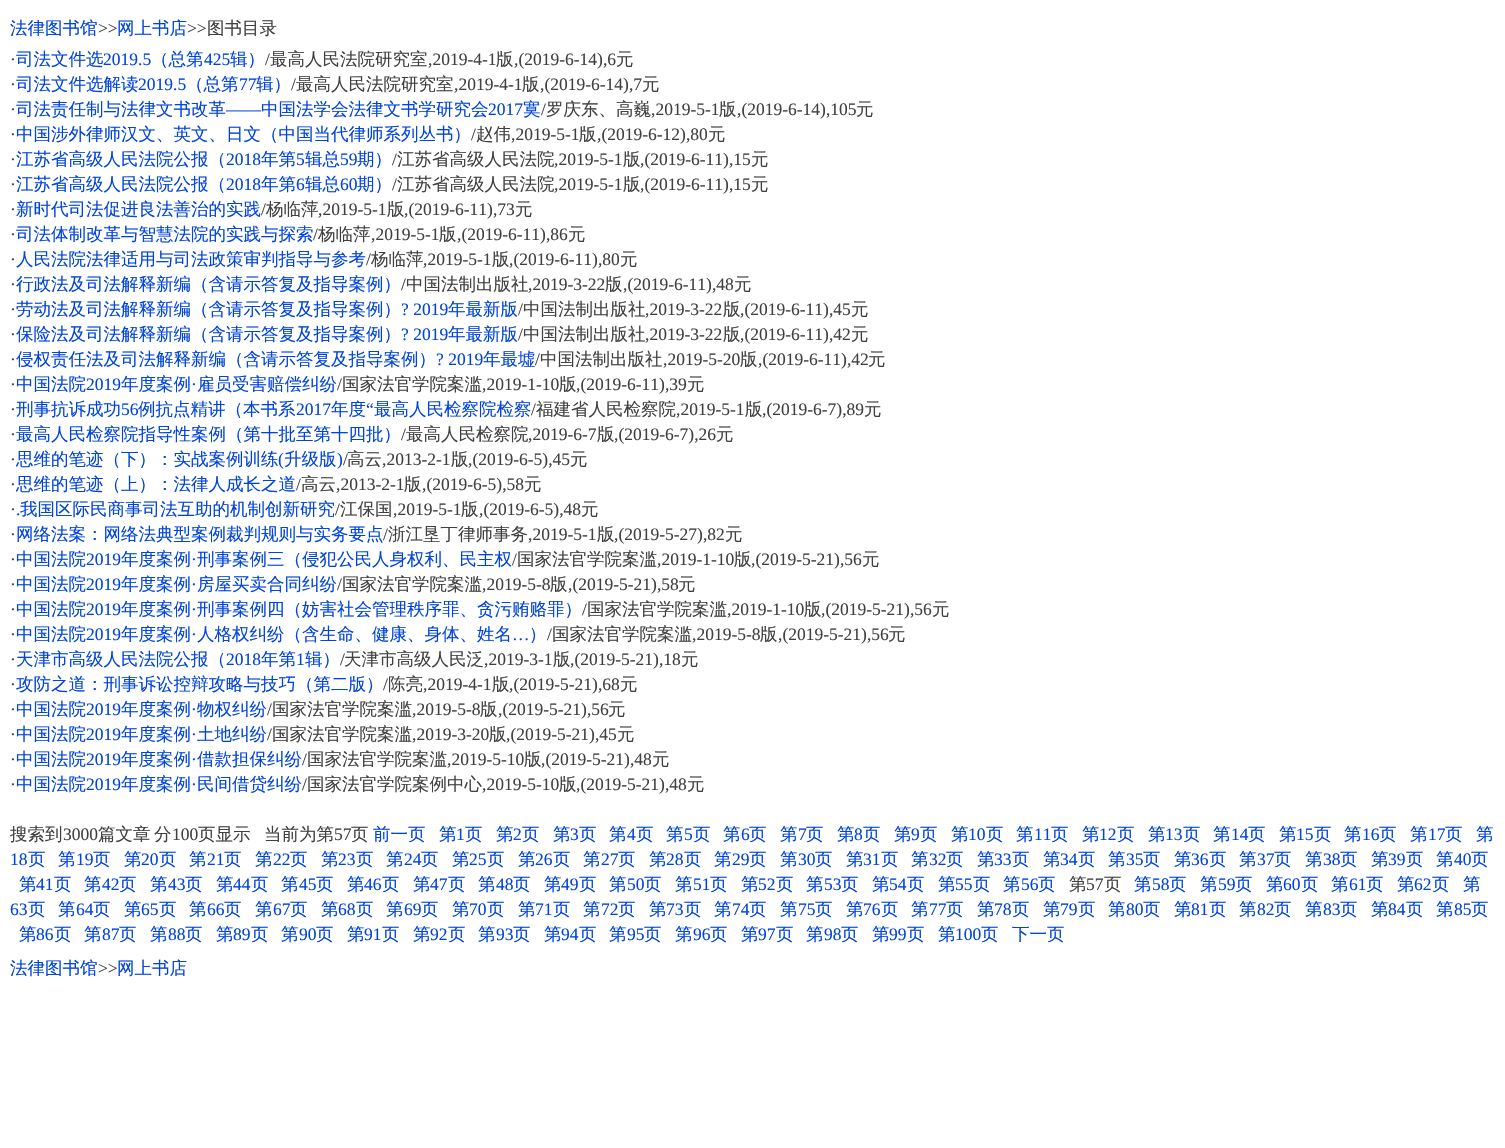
static SkFont makeFont(const char* family, int weight, float size, bool italic = false) {
  SkFontStyle style(weight, SkFontStyle::kNormal_Width,
    italic ? SkFontStyle::kItalic_Slant : SkFontStyle::kUpright_Slant);
  SkFont result(fontMgr->matchFamilyStyle(family, style), size);
  result.setSubpixel(true);
  return result;
}

static void text(SkCanvas* c, const char* s, float x, float y, const SkFont& font, SkColor color) {
  SkPaint ink(SkColor4f::FromColor(color));
  ink.setAntiAlias(true);
  c->drawString(s, x, y, font, ink);
}

void draw(SkCanvas* c) {
  SkPaint paint;
  paint.setAntiAlias(true);
  c->clear(0xffffffff);
  SkFont face1 = makeFont("WenQuanYi Zen Hei", 500, 17.5f);
  text(c, "法律图书馆", 10, 34, face1, 0xff0044dd);
  SkFont face2 = makeFont("Liberation Serif", 400, 17.5f);
  text(c, ">>", 98, 34, face2, 0xff404040);
  text(c, "网上书店", 117, 34, face1, 0xff0044dd);
  text(c, ">>", 187, 34, face2, 0xff404040);
  text(c, "图书目录", 207, 34, face1, 0xff404040);
  text(c, "·", 10, 65, face2, 0xff404040);
  text(c, "司法文件选", 16, 65, face1, 0xff0044dd);
  text(c, "2019.5", 103, 65, face2, 0xff0044dd);
  text(c, "（总第", 151, 65, face1, 0xff0044dd);
  text(c, "425", 204, 65, face2, 0xff0044dd);
  text(c, "辑）", 230, 65, face1, 0xff0044dd);
  text(c, "/", 265, 65, face2, 0xff404040);
  text(c, "最高人民法院研究室", 270, 65, face1, 0xff404040);
  text(c, ",2019-4-1", 428, 65, face2, 0xff404040);
  text(c, "版", 496, 65, face1, 0xff404040);
  text(c, ",(2019-6-14),6", 514, 65, face2, 0xff404040);
  text(c, "元", 616, 65, face1, 0xff404040);
  text(c, "·", 10, 90, face2, 0xff404040);
  text(c, "司法文件选解读", 16, 90, face1, 0xff0044dd);
  text(c, "2019.5", 138, 90, face2, 0xff0044dd);
  text(c, "（总第", 186, 90, face1, 0xff0044dd);
  text(c, "77", 239, 90, face2, 0xff0044dd);
  text(c, "辑）", 256, 90, face1, 0xff0044dd);
  text(c, "/", 291, 90, face2, 0xff404040);
  text(c, "最高人民法院研究室", 296, 90, face1, 0xff404040);
  text(c, ",2019-4-1", 454, 90, face2, 0xff404040);
  text(c, "版", 522, 90, face1, 0xff404040);
  text(c, ",(2019-6-14),7", 540, 90, face2, 0xff404040);
  text(c, "元", 642, 90, face1, 0xff404040);
  text(c, "·", 10, 115, face2, 0xff404040);
  text(c, "司法责任制与法律文书改革", 16, 115, face1, 0xff0044dd);
  text(c, "——", 226, 115, face2, 0xff0044dd);
  text(c, "中国法学会法律文书学研究会", 261, 115, face1, 0xff0044dd);
  text(c, "2017", 488, 115, face2, 0xff0044dd);
  text(c, "寞", 523, 115, face1, 0xff0044dd);
  text(c, "/", 541, 115, face2, 0xff404040);
  text(c, "罗庆东、高巍", 546, 115, face1, 0xff404040);
  text(c, ",2019-5-1", 651, 115, face2, 0xff404040);
  text(c, "版", 719, 115, face1, 0xff404040);
  text(c, ",(2019-6-14),105", 737, 115, face2, 0xff404040);
  text(c, "元", 856, 115, face1, 0xff404040);
  text(c, "·", 10, 140, face2, 0xff404040);
  text(c, "中国涉外律师汉文、英文、日文（中国当代律师系列丛书）", 16, 140, face1, 0xff0044dd);
  text(c, "/", 471, 140, face2, 0xff404040);
  text(c, "赵伟", 476, 140, face1, 0xff404040);
  text(c, ",2019-5-1", 511, 140, face2, 0xff404040);
  text(c, "版", 579, 140, face1, 0xff404040);
  text(c, ",(2019-6-12),80", 597, 140, face2, 0xff404040);
  text(c, "元", 708, 140, face1, 0xff404040);
  text(c, "·", 10, 165, face2, 0xff404040);
  text(c, "江苏省高级人民法院公报（", 16, 165, face1, 0xff0044dd);
  text(c, "2018", 226, 165, face2, 0xff0044dd);
  text(c, "年第", 261, 165, face1, 0xff0044dd);
  text(c, "5", 296, 165, face2, 0xff0044dd);
  text(c, "辑总", 305, 165, face1, 0xff0044dd);
  text(c, "59", 340, 165, face2, 0xff0044dd);
  text(c, "期）", 357, 165, face1, 0xff0044dd);
  text(c, "/", 392, 165, face2, 0xff404040);
  text(c, "江苏省高级人民法院", 397, 165, face1, 0xff404040);
  text(c, ",2019-5-1", 554, 165, face2, 0xff404040);
  text(c, "版", 623, 165, face1, 0xff404040);
  text(c, ",(2019-6-11),15", 640, 165, face2, 0xff404040);
  text(c, "元", 751, 165, face1, 0xff404040);
  text(c, "·", 10, 190, face2, 0xff404040);
  text(c, "江苏省高级人民法院公报（", 16, 190, face1, 0xff0044dd);
  text(c, "2018", 226, 190, face2, 0xff0044dd);
  text(c, "年第", 261, 190, face1, 0xff0044dd);
  text(c, "6", 296, 190, face2, 0xff0044dd);
  text(c, "辑总", 305, 190, face1, 0xff0044dd);
  text(c, "60", 340, 190, face2, 0xff0044dd);
  text(c, "期）", 357, 190, face1, 0xff0044dd);
  text(c, "/", 392, 190, face2, 0xff404040);
  text(c, "江苏省高级人民法院", 397, 190, face1, 0xff404040);
  text(c, ",2019-5-1", 554, 190, face2, 0xff404040);
  text(c, "版", 623, 190, face1, 0xff404040);
  text(c, ",(2019-6-11),15", 640, 190, face2, 0xff404040);
  text(c, "元", 751, 190, face1, 0xff404040);
  text(c, "·", 10, 215, face2, 0xff404040);
  text(c, "新时代司法促进良法善治的实践", 16, 215, face1, 0xff0044dd);
  text(c, "/", 261, 215, face2, 0xff404040);
  text(c, "杨临萍", 266, 215, face1, 0xff404040);
  text(c, ",2019-5-1", 318, 215, face2, 0xff404040);
  text(c, "版", 387, 215, face1, 0xff404040);
  text(c, ",(2019-6-11),73", 404, 215, face2, 0xff404040);
  text(c, "元", 515, 215, face1, 0xff404040);
  text(c, "·", 10, 240, face2, 0xff404040);
  text(c, "司法体制改革与智慧法院的实践与探索", 16, 240, face1, 0xff0044dd);
  text(c, "/", 313, 240, face2, 0xff404040);
  text(c, "杨临萍", 318, 240, face1, 0xff404040);
  text(c, ",2019-5-1", 371, 240, face2, 0xff404040);
  text(c, "版", 439, 240, face1, 0xff404040);
  text(c, ",(2019-6-11),86", 457, 240, face2, 0xff404040);
  text(c, "元", 568, 240, face1, 0xff404040);
  text(c, "·", 10, 265, face2, 0xff404040);
  text(c, "人民法院法律适用与司法政策审判指导与参考", 16, 265, face1, 0xff0044dd);
  text(c, "/", 366, 265, face2, 0xff404040);
  text(c, "杨临萍", 371, 265, face1, 0xff404040);
  text(c, ",2019-5-1", 423, 265, face2, 0xff404040);
  text(c, "版", 492, 265, face1, 0xff404040);
  text(c, ",(2019-6-11),80", 509, 265, face2, 0xff404040);
  text(c, "元", 620, 265, face1, 0xff404040);
  text(c, "·", 10, 290, face2, 0xff404040);
  text(c, "行政法及司法解释新编（含请示答复及指导案例）", 16, 290, face1, 0xff0044dd);
  text(c, "/", 401, 290, face2, 0xff404040);
  text(c, "中国法制出版社", 406, 290, face1, 0xff404040);
  text(c, ",2019-3-22", 528, 290, face2, 0xff404040);
  text(c, "版", 605, 290, face1, 0xff404040);
  text(c, ",(2019-6-11),48", 623, 290, face2, 0xff404040);
  text(c, "元", 734, 290, face1, 0xff404040);
  text(c, "·", 10, 315, face2, 0xff404040);
  text(c, "劳动法及司法解释新编（含请示答复及指导案例）", 16, 315, face1, 0xff0044dd);
  text(c, "? 2019", 401, 315, face2, 0xff0044dd);
  text(c, "年最新版", 448, 315, face1, 0xff0044dd);
  text(c, "/", 518, 315, face2, 0xff404040);
  text(c, "中国法制出版社", 523, 315, face1, 0xff404040);
  text(c, ",2019-3-22", 645, 315, face2, 0xff404040);
  text(c, "版", 723, 315, face1, 0xff404040);
  text(c, ",(2019-6-11),45", 740, 315, face2, 0xff404040);
  text(c, "元", 851, 315, face1, 0xff404040);
  text(c, "·", 10, 340, face2, 0xff404040);
  text(c, "保险法及司法解释新编（含请示答复及指导案例）", 16, 340, face1, 0xff0044dd);
  text(c, "? 2019", 401, 340, face2, 0xff0044dd);
  text(c, "年最新版", 448, 340, face1, 0xff0044dd);
  text(c, "/", 518, 340, face2, 0xff404040);
  text(c, "中国法制出版社", 523, 340, face1, 0xff404040);
  text(c, ",2019-3-22", 645, 340, face2, 0xff404040);
  text(c, "版", 723, 340, face1, 0xff404040);
  text(c, ",(2019-6-11),42", 740, 340, face2, 0xff404040);
  text(c, "元", 851, 340, face1, 0xff404040);
  text(c, "·", 10, 365, face2, 0xff404040);
  text(c, "侵权责任法及司法解释新编（含请示答复及指导案例）", 16, 365, face1, 0xff0044dd);
  text(c, "? 2019", 436, 365, face2, 0xff0044dd);
  text(c, "年最墟", 483, 365, face1, 0xff0044dd);
  text(c, "/", 535, 365, face2, 0xff404040);
  text(c, "中国法制出版社", 540, 365, face1, 0xff404040);
  text(c, ",2019-5-20", 663, 365, face2, 0xff404040);
  text(c, "版", 740, 365, face1, 0xff404040);
  text(c, ",(2019-6-11),42", 758, 365, face2, 0xff404040);
  text(c, "元", 868, 365, face1, 0xff404040);
  text(c, "·", 10, 390, face2, 0xff404040);
  text(c, "中国法院", 16, 390, face1, 0xff0044dd);
  text(c, "2019", 86, 390, face2, 0xff0044dd);
  text(c, "年度案例", 121, 390, face1, 0xff0044dd);
  text(c, "·", 191, 390, face2, 0xff0044dd);
  text(c, "雇员受害赔偿纠纷", 197, 390, face1, 0xff0044dd);
  text(c, "/", 337, 390, face2, 0xff404040);
  text(c, "国家法官学院案滥", 342, 390, face1, 0xff404040);
  text(c, ",2019-1-10", 482, 390, face2, 0xff404040);
  text(c, "版", 559, 390, face1, 0xff404040);
  text(c, ",(2019-6-11),39", 576, 390, face2, 0xff404040);
  text(c, "元", 687, 390, face1, 0xff404040);
  text(c, "·", 10, 415, face2, 0xff404040);
  text(c, "刑事抗诉成功", 16, 415, face1, 0xff0044dd);
  text(c, "56", 121, 415, face2, 0xff0044dd);
  text(c, "例抗点精讲（本书系", 138, 415, face1, 0xff0044dd);
  text(c, "2017", 296, 415, face2, 0xff0044dd);
  text(c, "年度", 331, 415, face1, 0xff0044dd);
  text(c, "“", 366, 415, face2, 0xff0044dd);
  text(c, "最高人民检察院检察", 374, 415, face1, 0xff0044dd);
  text(c, "/", 531, 415, face2, 0xff404040);
  text(c, "福建省人民检察院", 536, 415, face1, 0xff404040);
  text(c, ",2019-5-1", 676, 415, face2, 0xff404040);
  text(c, "版", 745, 415, face1, 0xff404040);
  text(c, ",(2019-6-7),89", 762, 415, face2, 0xff404040);
  text(c, "元", 864, 415, face1, 0xff404040);
  text(c, "·", 10, 440, face2, 0xff404040);
  text(c, "最高人民检察院指导性案例（第十批至第十四批）", 16, 440, face1, 0xff0044dd);
  text(c, "/", 401, 440, face2, 0xff404040);
  text(c, "最高人民检察院", 406, 440, face1, 0xff404040);
  text(c, ",2019-6-7", 528, 440, face2, 0xff404040);
  text(c, "版", 597, 440, face1, 0xff404040);
  text(c, ",(2019-6-7),26", 614, 440, face2, 0xff404040);
  text(c, "元", 716, 440, face1, 0xff404040);
  text(c, "·", 10, 465, face2, 0xff404040);
  text(c, "思维的笔迹（下）：实战案例训练", 16, 465, face1, 0xff0044dd);
  text(c, "(", 278, 465, face2, 0xff0044dd);
  text(c, "升级版", 284, 465, face1, 0xff0044dd);
  text(c, ")", 337, 465, face2, 0xff0044dd);
  text(c, "/", 343, 465, face2, 0xff404040);
  text(c, "高云", 347, 465, face1, 0xff404040);
  text(c, ",2013-2-1", 382, 465, face2, 0xff404040);
  text(c, "版", 451, 465, face1, 0xff404040);
  text(c, ",(2019-6-5),45", 468, 465, face2, 0xff404040);
  text(c, "元", 570, 465, face1, 0xff404040);
  text(c, "·", 10, 490, face2, 0xff404040);
  text(c, "思维的笔迹（上）：法律人成长之道", 16, 490, face1, 0xff0044dd);
  text(c, "/", 296, 490, face2, 0xff404040);
  text(c, "高云", 301, 490, face1, 0xff404040);
  text(c, ",2013-2-1", 336, 490, face2, 0xff404040);
  text(c, "版", 404, 490, face1, 0xff404040);
  text(c, ",(2019-6-5),58", 422, 490, face2, 0xff404040);
  text(c, "元", 524, 490, face1, 0xff404040);
  text(c, "·", 10, 515, face2, 0xff404040);
  text(c, "我国区际民商事司法互助的机制创新研究", 20, 515, face1, 0xff0044dd);
  text(c, "/", 335, 515, face2, 0xff404040);
  text(c, "江保国", 340, 515, face1, 0xff404040);
  text(c, ",2019-5-1", 393, 515, face2, 0xff404040);
  text(c, "版", 461, 515, face1, 0xff404040);
  text(c, ",(2019-6-5),48", 479, 515, face2, 0xff404040);
  text(c, "元", 581, 515, face1, 0xff404040);
  text(c, ".", 16, 515, face2, 0xff0044dd);
  text(c, "·", 10, 540, face2, 0xff404040);
  text(c, "网络法案：网络法典型案例裁判规则与实务要点", 16, 540, face1, 0xff0044dd);
  text(c, "/", 383, 540, face2, 0xff404040);
  text(c, "浙江垦丁律师事务", 388, 540, face1, 0xff404040);
  text(c, ",2019-5-1", 528, 540, face2, 0xff404040);
  text(c, "版", 597, 540, face1, 0xff404040);
  text(c, ",(2019-5-27),82", 614, 540, face2, 0xff404040);
  text(c, "元", 725, 540, face1, 0xff404040);
  text(c, "·", 10, 565, face2, 0xff404040);
  text(c, "中国法院", 16, 565, face1, 0xff0044dd);
  text(c, "2019", 86, 565, face2, 0xff0044dd);
  text(c, "年度案例", 121, 565, face1, 0xff0044dd);
  text(c, "·", 191, 565, face2, 0xff0044dd);
  text(c, "刑事案例三（侵犯公民人身权利、民主权", 197, 565, face1, 0xff0044dd);
  text(c, "/", 512, 565, face2, 0xff404040);
  text(c, "国家法官学院案滥", 517, 565, face1, 0xff404040);
  text(c, ",2019-1-10", 657, 565, face2, 0xff404040);
  text(c, "版", 734, 565, face1, 0xff404040);
  text(c, ",(2019-5-21),56", 751, 565, face2, 0xff404040);
  text(c, "元", 862, 565, face1, 0xff404040);
  text(c, "·", 10, 590, face2, 0xff404040);
  text(c, "中国法院", 16, 590, face1, 0xff0044dd);
  text(c, "2019", 86, 590, face2, 0xff0044dd);
  text(c, "年度案例", 121, 590, face1, 0xff0044dd);
  text(c, "·", 191, 590, face2, 0xff0044dd);
  text(c, "房屋买卖合同纠纷", 197, 590, face1, 0xff0044dd);
  text(c, "/", 337, 590, face2, 0xff404040);
  text(c, "国家法官学院案滥", 342, 590, face1, 0xff404040);
  text(c, ",2019-5-8", 482, 590, face2, 0xff404040);
  text(c, "版", 550, 590, face1, 0xff404040);
  text(c, ",(2019-5-21),58", 568, 590, face2, 0xff404040);
  text(c, "元", 678, 590, face1, 0xff404040);
  text(c, "·", 10, 615, face2, 0xff404040);
  text(c, "中国法院", 16, 615, face1, 0xff0044dd);
  text(c, "2019", 86, 615, face2, 0xff0044dd);
  text(c, "年度案例", 121, 615, face1, 0xff0044dd);
  text(c, "·", 191, 615, face2, 0xff0044dd);
  text(c, "刑事案例四（妨害社会管理秩序罪、贪污贿赂罪）", 197, 615, face1, 0xff0044dd);
  text(c, "/", 582, 615, face2, 0xff404040);
  text(c, "国家法官学院案滥", 587, 615, face1, 0xff404040);
  text(c, ",2019-1-10", 727, 615, face2, 0xff404040);
  text(c, "版", 804, 615, face1, 0xff404040);
  text(c, ",(2019-5-21),56", 821, 615, face2, 0xff404040);
  text(c, "元", 932, 615, face1, 0xff404040);
  text(c, "·", 10, 640, face2, 0xff404040);
  text(c, "中国法院", 16, 640, face1, 0xff0044dd);
  text(c, "2019", 86, 640, face2, 0xff0044dd);
  text(c, "年度案例", 121, 640, face1, 0xff0044dd);
  text(c, "·", 191, 640, face2, 0xff0044dd);
  text(c, "人格权纠纷（含生命、健康、身体、姓名", 197, 640, face1, 0xff0044dd);
  text(c, "）", 529, 640, face1, 0xff0044dd);
  text(c, "/", 547, 640, face2, 0xff404040);
  text(c, "国家法官学院案滥", 552, 640, face1, 0xff404040);
  text(c, ",2019-5-8", 692, 640, face2, 0xff404040);
  text(c, "版", 760, 640, face1, 0xff404040);
  text(c, ",(2019-5-21),56", 778, 640, face2, 0xff404040);
  text(c, "元", 888, 640, face1, 0xff404040);
  text(c, "…", 512, 640, face2, 0xff0044dd);
  text(c, "·", 10, 665, face2, 0xff404040);
  text(c, "天津市高级人民法院公报（", 16, 665, face1, 0xff0044dd);
  text(c, "2018", 226, 665, face2, 0xff0044dd);
  text(c, "年第", 261, 665, face1, 0xff0044dd);
  text(c, "1", 296, 665, face2, 0xff0044dd);
  text(c, "辑）", 305, 665, face1, 0xff0044dd);
  text(c, "/", 340, 665, face2, 0xff404040);
  text(c, "天津市高级人民泛", 344, 665, face1, 0xff404040);
  text(c, ",2019-3-1", 484, 665, face2, 0xff404040);
  text(c, "版", 553, 665, face1, 0xff404040);
  text(c, ",(2019-5-21),18", 570, 665, face2, 0xff404040);
  text(c, "元", 681, 665, face1, 0xff404040);
  text(c, "·", 10, 690, face2, 0xff404040);
  text(c, "攻防之道：刑事诉讼控辩攻略与技巧（第二版）", 16, 690, face1, 0xff0044dd);
  text(c, "/", 383, 690, face2, 0xff404040);
  text(c, "陈亮", 388, 690, face1, 0xff404040);
  text(c, ",2019-4-1", 423, 690, face2, 0xff404040);
  text(c, "版", 492, 690, face1, 0xff404040);
  text(c, ",(2019-5-21),68", 509, 690, face2, 0xff404040);
  text(c, "元", 620, 690, face1, 0xff404040);
  text(c, "·", 10, 715, face2, 0xff404040);
  text(c, "中国法院", 16, 715, face1, 0xff0044dd);
  text(c, "2019", 86, 715, face2, 0xff0044dd);
  text(c, "年度案例", 121, 715, face1, 0xff0044dd);
  text(c, "·", 191, 715, face2, 0xff0044dd);
  text(c, "物权纠纷", 197, 715, face1, 0xff0044dd);
  text(c, "/", 267, 715, face2, 0xff404040);
  text(c, "国家法官学院案滥", 272, 715, face1, 0xff404040);
  text(c, ",2019-5-8", 412, 715, face2, 0xff404040);
  text(c, "版", 480, 715, face1, 0xff404040);
  text(c, ",(2019-5-21),56", 498, 715, face2, 0xff404040);
  text(c, "元", 608, 715, face1, 0xff404040);
  text(c, "·", 10, 740, face2, 0xff404040);
  text(c, "中国法院", 16, 740, face1, 0xff0044dd);
  text(c, "2019", 86, 740, face2, 0xff0044dd);
  text(c, "年度案例", 121, 740, face1, 0xff0044dd);
  text(c, "·", 191, 740, face2, 0xff0044dd);
  text(c, "土地纠纷", 197, 740, face1, 0xff0044dd);
  text(c, "/", 267, 740, face2, 0xff404040);
  text(c, "国家法官学院案滥", 272, 740, face1, 0xff404040);
  text(c, ",2019-3-20", 412, 740, face2, 0xff404040);
  text(c, "版", 489, 740, face1, 0xff404040);
  text(c, ",(2019-5-21),45", 506, 740, face2, 0xff404040);
  text(c, "元", 617, 740, face1, 0xff404040);
  text(c, "·", 10, 765, face2, 0xff404040);
  text(c, "中国法院", 16, 765, face1, 0xff0044dd);
  text(c, "2019", 86, 765, face2, 0xff0044dd);
  text(c, "年度案例", 121, 765, face1, 0xff0044dd);
  text(c, "·", 191, 765, face2, 0xff0044dd);
  text(c, "借款担保纠纷", 197, 765, face1, 0xff0044dd);
  text(c, "/", 302, 765, face2, 0xff404040);
  text(c, "国家法官学院案滥", 307, 765, face1, 0xff404040);
  text(c, ",2019-5-10", 447, 765, face2, 0xff404040);
  text(c, "版", 524, 765, face1, 0xff404040);
  text(c, ",(2019-5-21),48", 541, 765, face2, 0xff404040);
  text(c, "元", 652, 765, face1, 0xff404040);
  text(c, "·", 10, 790, face2, 0xff404040);
  text(c, "中国法院", 16, 790, face1, 0xff0044dd);
  text(c, "2019", 86, 790, face2, 0xff0044dd);
  text(c, "年度案例", 121, 790, face1, 0xff0044dd);
  text(c, "·", 191, 790, face2, 0xff0044dd);
  text(c, "民间借贷纠纷", 197, 790, face1, 0xff0044dd);
  text(c, "/", 302, 790, face2, 0xff404040);
  text(c, "国家法官学院案例中心", 307, 790, face1, 0xff404040);
  text(c, ",2019-5-10", 482, 790, face2, 0xff404040);
  text(c, "版", 559, 790, face1, 0xff404040);
  text(c, ",(2019-5-21),48", 576, 790, face2, 0xff404040);
  text(c, "元", 687, 790, face1, 0xff404040);
  text(c, "搜索到", 10, 840, face1, 0xff404040);
  text(c, "3000", 63, 840, face2, 0xff404040);
  text(c, "篇文章", 98, 840, face1, 0xff404040);
  text(c, "分", 154, 840, face1, 0xff404040);
  text(c, "100", 172, 840, face2, 0xff404040);
  text(c, "页显示", 198, 840, face1, 0xff404040);
  text(c, "当前为第", 264, 840, face1, 0xff404040);
  text(c, "57", 334, 840, face2, 0xff404040);
  text(c, "页", 351, 840, face1, 0xff404040);
  text(c, "前一页", 373, 840, face1, 0xff0044dd);
  text(c, "第", 439, 840, face1, 0xff0044dd);
  text(c, "1", 456, 840, face2, 0xff0044dd);
  text(c, "页", 465, 840, face1, 0xff0044dd);
  text(c, "第", 496, 840, face1, 0xff0044dd);
  text(c, "2", 513, 840, face2, 0xff0044dd);
  text(c, "页", 522, 840, face1, 0xff0044dd);
  text(c, "第", 553, 840, face1, 0xff0044dd);
  text(c, "3", 570, 840, face2, 0xff0044dd);
  text(c, "页", 579, 840, face1, 0xff0044dd);
  text(c, "第", 609, 840, face1, 0xff0044dd);
  text(c, "4", 627, 840, face2, 0xff0044dd);
  text(c, "页", 636, 840, face1, 0xff0044dd);
  text(c, "第", 666, 840, face1, 0xff0044dd);
  text(c, "5", 684, 840, face2, 0xff0044dd);
  text(c, "页", 693, 840, face1, 0xff0044dd);
  text(c, "第", 723, 840, face1, 0xff0044dd);
  text(c, "6", 741, 840, face2, 0xff0044dd);
  text(c, "页", 749, 840, face1, 0xff0044dd);
  text(c, "第", 780, 840, face1, 0xff0044dd);
  text(c, "7", 798, 840, face2, 0xff0044dd);
  text(c, "页", 806, 840, face1, 0xff0044dd);
  text(c, "第", 837, 840, face1, 0xff0044dd);
  text(c, "8", 854, 840, face2, 0xff0044dd);
  text(c, "页", 863, 840, face1, 0xff0044dd);
  text(c, "第", 894, 840, face1, 0xff0044dd);
  text(c, "9", 911, 840, face2, 0xff0044dd);
  text(c, "页", 920, 840, face1, 0xff0044dd);
  text(c, "第", 951, 840, face1, 0xff0044dd);
  text(c, "10", 968, 840, face2, 0xff0044dd);
  text(c, "页", 986, 840, face1, 0xff0044dd);
  text(c, "第", 1016, 840, face1, 0xff0044dd);
  text(c, "11", 1034, 840, face2, 0xff0044dd);
  text(c, "页", 1051, 840, face1, 0xff0044dd);
  text(c, "第", 1082, 840, face1, 0xff0044dd);
  text(c, "12", 1099, 840, face2, 0xff0044dd);
  text(c, "页", 1117, 840, face1, 0xff0044dd);
  text(c, "第", 1148, 840, face1, 0xff0044dd);
  text(c, "13", 1165, 840, face2, 0xff0044dd);
  text(c, "页", 1183, 840, face1, 0xff0044dd);
  text(c, "第", 1213, 840, face1, 0xff0044dd);
  text(c, "14", 1231, 840, face2, 0xff0044dd);
  text(c, "页", 1248, 840, face1, 0xff0044dd);
  text(c, "第", 1279, 840, face1, 0xff0044dd);
  text(c, "15", 1296, 840, face2, 0xff0044dd);
  text(c, "页", 1314, 840, face1, 0xff0044dd);
  text(c, "第", 1344, 840, face1, 0xff0044dd);
  text(c, "16", 1362, 840, face2, 0xff0044dd);
  text(c, "页", 1379, 840, face1, 0xff0044dd);
  text(c, "第", 1410, 840, face1, 0xff0044dd);
  text(c, "17", 1428, 840, face2, 0xff0044dd);
  text(c, "页", 1445, 840, face1, 0xff0044dd);
  text(c, "第", 1476, 840, face1, 0xff0044dd);
  text(c, "18", 10, 865, face2, 0xff0044dd);
  text(c, "页", 28, 865, face1, 0xff0044dd);
  text(c, "第", 58, 865, face1, 0xff0044dd);
  text(c, "19", 76, 865, face2, 0xff0044dd);
  text(c, "页", 93, 865, face1, 0xff0044dd);
  text(c, "第", 124, 865, face1, 0xff0044dd);
  text(c, "20", 141, 865, face2, 0xff0044dd);
  text(c, "页", 159, 865, face1, 0xff0044dd);
  text(c, "第", 189, 865, face1, 0xff0044dd);
  text(c, "21", 207, 865, face2, 0xff0044dd);
  text(c, "页", 224, 865, face1, 0xff0044dd);
  text(c, "第", 255, 865, face1, 0xff0044dd);
  text(c, "22", 273, 865, face2, 0xff0044dd);
  text(c, "页", 290, 865, face1, 0xff0044dd);
  text(c, "第", 321, 865, face1, 0xff0044dd);
  text(c, "23", 338, 865, face2, 0xff0044dd);
  text(c, "页", 356, 865, face1, 0xff0044dd);
  text(c, "第", 386, 865, face1, 0xff0044dd);
  text(c, "24", 404, 865, face2, 0xff0044dd);
  text(c, "页", 421, 865, face1, 0xff0044dd);
  text(c, "第", 452, 865, face1, 0xff0044dd);
  text(c, "25", 469, 865, face2, 0xff0044dd);
  text(c, "页", 487, 865, face1, 0xff0044dd);
  text(c, "第", 518, 865, face1, 0xff0044dd);
  text(c, "26", 535, 865, face2, 0xff0044dd);
  text(c, "页", 553, 865, face1, 0xff0044dd);
  text(c, "第", 583, 865, face1, 0xff0044dd);
  text(c, "27", 601, 865, face2, 0xff0044dd);
  text(c, "页", 618, 865, face1, 0xff0044dd);
  text(c, "第", 649, 865, face1, 0xff0044dd);
  text(c, "28", 666, 865, face2, 0xff0044dd);
  text(c, "页", 684, 865, face1, 0xff0044dd);
  text(c, "第", 714, 865, face1, 0xff0044dd);
  text(c, "29", 732, 865, face2, 0xff0044dd);
  text(c, "页", 749, 865, face1, 0xff0044dd);
  text(c, "第", 780, 865, face1, 0xff0044dd);
  text(c, "30", 798, 865, face2, 0xff0044dd);
  text(c, "页", 815, 865, face1, 0xff0044dd);
  text(c, "第", 846, 865, face1, 0xff0044dd);
  text(c, "31", 863, 865, face2, 0xff0044dd);
  text(c, "页", 881, 865, face1, 0xff0044dd);
  text(c, "第", 911, 865, face1, 0xff0044dd);
  text(c, "32", 929, 865, face2, 0xff0044dd);
  text(c, "页", 946, 865, face1, 0xff0044dd);
  text(c, "第", 977, 865, face1, 0xff0044dd);
  text(c, "33", 994, 865, face2, 0xff0044dd);
  text(c, "页", 1012, 865, face1, 0xff0044dd);
  text(c, "第", 1043, 865, face1, 0xff0044dd);
  text(c, "34", 1060, 865, face2, 0xff0044dd);
  text(c, "页", 1078, 865, face1, 0xff0044dd);
  text(c, "第", 1108, 865, face1, 0xff0044dd);
  text(c, "35", 1126, 865, face2, 0xff0044dd);
  text(c, "页", 1143, 865, face1, 0xff0044dd);
  text(c, "第", 1174, 865, face1, 0xff0044dd);
  text(c, "36", 1191, 865, face2, 0xff0044dd);
  text(c, "页", 1209, 865, face1, 0xff0044dd);
  text(c, "第", 1239, 865, face1, 0xff0044dd);
  text(c, "37", 1257, 865, face2, 0xff0044dd);
  text(c, "页", 1274, 865, face1, 0xff0044dd);
  text(c, "第", 1305, 865, face1, 0xff0044dd);
  text(c, "38", 1323, 865, face2, 0xff0044dd);
  text(c, "页", 1340, 865, face1, 0xff0044dd);
  text(c, "第", 1371, 865, face1, 0xff0044dd);
  text(c, "39", 1388, 865, face2, 0xff0044dd);
  text(c, "页", 1406, 865, face1, 0xff0044dd);
  text(c, "第", 1436, 865, face1, 0xff0044dd);
  text(c, "40", 1454, 865, face2, 0xff0044dd);
  text(c, "页", 1471, 865, face1, 0xff0044dd);
  text(c, "第", 19, 890, face1, 0xff0044dd);
  text(c, "41", 36, 890, face2, 0xff0044dd);
  text(c, "页", 54, 890, face1, 0xff0044dd);
  text(c, "第", 84, 890, face1, 0xff0044dd);
  text(c, "42", 102, 890, face2, 0xff0044dd);
  text(c, "页", 119, 890, face1, 0xff0044dd);
  text(c, "第", 150, 890, face1, 0xff0044dd);
  text(c, "43", 168, 890, face2, 0xff0044dd);
  text(c, "页", 185, 890, face1, 0xff0044dd);
  text(c, "第", 216, 890, face1, 0xff0044dd);
  text(c, "44", 233, 890, face2, 0xff0044dd);
  text(c, "页", 251, 890, face1, 0xff0044dd);
  text(c, "第", 281, 890, face1, 0xff0044dd);
  text(c, "45", 299, 890, face2, 0xff0044dd);
  text(c, "页", 316, 890, face1, 0xff0044dd);
  text(c, "第", 347, 890, face1, 0xff0044dd);
  text(c, "46", 364, 890, face2, 0xff0044dd);
  text(c, "页", 382, 890, face1, 0xff0044dd);
  text(c, "第", 413, 890, face1, 0xff0044dd);
  text(c, "47", 430, 890, face2, 0xff0044dd);
  text(c, "页", 448, 890, face1, 0xff0044dd);
  text(c, "第", 478, 890, face1, 0xff0044dd);
  text(c, "48", 496, 890, face2, 0xff0044dd);
  text(c, "页", 513, 890, face1, 0xff0044dd);
  text(c, "第", 544, 890, face1, 0xff0044dd);
  text(c, "49", 561, 890, face2, 0xff0044dd);
  text(c, "页", 579, 890, face1, 0xff0044dd);
  text(c, "第", 609, 890, face1, 0xff0044dd);
  text(c, "50", 627, 890, face2, 0xff0044dd);
  text(c, "页", 644, 890, face1, 0xff0044dd);
  text(c, "第", 675, 890, face1, 0xff0044dd);
  text(c, "51", 693, 890, face2, 0xff0044dd);
  text(c, "页", 710, 890, face1, 0xff0044dd);
  text(c, "第", 741, 890, face1, 0xff0044dd);
  text(c, "52", 758, 890, face2, 0xff0044dd);
  text(c, "页", 776, 890, face1, 0xff0044dd);
  text(c, "第", 806, 890, face1, 0xff0044dd);
  text(c, "53", 824, 890, face2, 0xff0044dd);
  text(c, "页", 841, 890, face1, 0xff0044dd);
  text(c, "第", 872, 890, face1, 0xff0044dd);
  text(c, "54", 889, 890, face2, 0xff0044dd);
  text(c, "页", 907, 890, face1, 0xff0044dd);
  text(c, "第", 938, 890, face1, 0xff0044dd);
  text(c, "55", 955, 890, face2, 0xff0044dd);
  text(c, "页", 973, 890, face1, 0xff0044dd);
  text(c, "第", 1003, 890, face1, 0xff0044dd);
  text(c, "56", 1021, 890, face2, 0xff0044dd);
  text(c, "页", 1038, 890, face1, 0xff0044dd);
  text(c, "第", 1069, 890, face1, 0xff404040);
  text(c, "57", 1086, 890, face2, 0xff404040);
  text(c, "页", 1104, 890, face1, 0xff404040);
  text(c, "第", 1134, 890, face1, 0xff0044dd);
  text(c, "58", 1152, 890, face2, 0xff0044dd);
  text(c, "页", 1169, 890, face1, 0xff0044dd);
  text(c, "第", 1200, 890, face1, 0xff0044dd);
  text(c, "59", 1218, 890, face2, 0xff0044dd);
  text(c, "页", 1235, 890, face1, 0xff0044dd);
  text(c, "第", 1266, 890, face1, 0xff0044dd);
  text(c, "60", 1283, 890, face2, 0xff0044dd);
  text(c, "页", 1301, 890, face1, 0xff0044dd);
  text(c, "第", 1331, 890, face1, 0xff0044dd);
  text(c, "61", 1349, 890, face2, 0xff0044dd);
  text(c, "页", 1366, 890, face1, 0xff0044dd);
  text(c, "第", 1397, 890, face1, 0xff0044dd);
  text(c, "62", 1414, 890, face2, 0xff0044dd);
  text(c, "页", 1432, 890, face1, 0xff0044dd);
  text(c, "第", 1463, 890, face1, 0xff0044dd);
  text(c, "63", 10, 915, face2, 0xff0044dd);
  text(c, "页", 28, 915, face1, 0xff0044dd);
  text(c, "第", 58, 915, face1, 0xff0044dd);
  text(c, "64", 76, 915, face2, 0xff0044dd);
  text(c, "页", 93, 915, face1, 0xff0044dd);
  text(c, "第", 124, 915, face1, 0xff0044dd);
  text(c, "65", 141, 915, face2, 0xff0044dd);
  text(c, "页", 159, 915, face1, 0xff0044dd);
  text(c, "第", 189, 915, face1, 0xff0044dd);
  text(c, "66", 207, 915, face2, 0xff0044dd);
  text(c, "页", 224, 915, face1, 0xff0044dd);
  text(c, "第", 255, 915, face1, 0xff0044dd);
  text(c, "67", 273, 915, face2, 0xff0044dd);
  text(c, "页", 290, 915, face1, 0xff0044dd);
  text(c, "第", 321, 915, face1, 0xff0044dd);
  text(c, "68", 338, 915, face2, 0xff0044dd);
  text(c, "页", 356, 915, face1, 0xff0044dd);
  text(c, "第", 386, 915, face1, 0xff0044dd);
  text(c, "69", 404, 915, face2, 0xff0044dd);
  text(c, "页", 421, 915, face1, 0xff0044dd);
  text(c, "第", 452, 915, face1, 0xff0044dd);
  text(c, "70", 469, 915, face2, 0xff0044dd);
  text(c, "页", 487, 915, face1, 0xff0044dd);
  text(c, "第", 518, 915, face1, 0xff0044dd);
  text(c, "71", 535, 915, face2, 0xff0044dd);
  text(c, "页", 553, 915, face1, 0xff0044dd);
  text(c, "第", 583, 915, face1, 0xff0044dd);
  text(c, "72", 601, 915, face2, 0xff0044dd);
  text(c, "页", 618, 915, face1, 0xff0044dd);
  text(c, "第", 649, 915, face1, 0xff0044dd);
  text(c, "73", 666, 915, face2, 0xff0044dd);
  text(c, "页", 684, 915, face1, 0xff0044dd);
  text(c, "第", 714, 915, face1, 0xff0044dd);
  text(c, "74", 732, 915, face2, 0xff0044dd);
  text(c, "页", 749, 915, face1, 0xff0044dd);
  text(c, "第", 780, 915, face1, 0xff0044dd);
  text(c, "75", 798, 915, face2, 0xff0044dd);
  text(c, "页", 815, 915, face1, 0xff0044dd);
  text(c, "第", 846, 915, face1, 0xff0044dd);
  text(c, "76", 863, 915, face2, 0xff0044dd);
  text(c, "页", 881, 915, face1, 0xff0044dd);
  text(c, "第", 911, 915, face1, 0xff0044dd);
  text(c, "77", 929, 915, face2, 0xff0044dd);
  text(c, "页", 946, 915, face1, 0xff0044dd);
  text(c, "第", 977, 915, face1, 0xff0044dd);
  text(c, "78", 994, 915, face2, 0xff0044dd);
  text(c, "页", 1012, 915, face1, 0xff0044dd);
  text(c, "第", 1043, 915, face1, 0xff0044dd);
  text(c, "79", 1060, 915, face2, 0xff0044dd);
  text(c, "页", 1078, 915, face1, 0xff0044dd);
  text(c, "第", 1108, 915, face1, 0xff0044dd);
  text(c, "80", 1126, 915, face2, 0xff0044dd);
  text(c, "页", 1143, 915, face1, 0xff0044dd);
  text(c, "第", 1174, 915, face1, 0xff0044dd);
  text(c, "81", 1191, 915, face2, 0xff0044dd);
  text(c, "页", 1209, 915, face1, 0xff0044dd);
  text(c, "第", 1239, 915, face1, 0xff0044dd);
  text(c, "82", 1257, 915, face2, 0xff0044dd);
  text(c, "页", 1274, 915, face1, 0xff0044dd);
  text(c, "第", 1305, 915, face1, 0xff0044dd);
  text(c, "83", 1323, 915, face2, 0xff0044dd);
  text(c, "页", 1340, 915, face1, 0xff0044dd);
  text(c, "第", 1371, 915, face1, 0xff0044dd);
  text(c, "84", 1388, 915, face2, 0xff0044dd);
  text(c, "页", 1406, 915, face1, 0xff0044dd);
  text(c, "第", 1436, 915, face1, 0xff0044dd);
  text(c, "85", 1454, 915, face2, 0xff0044dd);
  text(c, "页", 1471, 915, face1, 0xff0044dd);
  text(c, "第", 19, 940, face1, 0xff0044dd);
  text(c, "86", 36, 940, face2, 0xff0044dd);
  text(c, "页", 54, 940, face1, 0xff0044dd);
  text(c, "第", 84, 940, face1, 0xff0044dd);
  text(c, "87", 102, 940, face2, 0xff0044dd);
  text(c, "页", 119, 940, face1, 0xff0044dd);
  text(c, "第", 150, 940, face1, 0xff0044dd);
  text(c, "88", 168, 940, face2, 0xff0044dd);
  text(c, "页", 185, 940, face1, 0xff0044dd);
  text(c, "第", 216, 940, face1, 0xff0044dd);
  text(c, "89", 233, 940, face2, 0xff0044dd);
  text(c, "页", 251, 940, face1, 0xff0044dd);
  text(c, "第", 281, 940, face1, 0xff0044dd);
  text(c, "90", 299, 940, face2, 0xff0044dd);
  text(c, "页", 316, 940, face1, 0xff0044dd);
  text(c, "第", 347, 940, face1, 0xff0044dd);
  text(c, "91", 364, 940, face2, 0xff0044dd);
  text(c, "页", 382, 940, face1, 0xff0044dd);
  text(c, "第", 413, 940, face1, 0xff0044dd);
  text(c, "92", 430, 940, face2, 0xff0044dd);
  text(c, "页", 448, 940, face1, 0xff0044dd);
  text(c, "第", 478, 940, face1, 0xff0044dd);
  text(c, "93", 496, 940, face2, 0xff0044dd);
  text(c, "页", 513, 940, face1, 0xff0044dd);
  text(c, "第", 544, 940, face1, 0xff0044dd);
  text(c, "94", 561, 940, face2, 0xff0044dd);
  text(c, "页", 579, 940, face1, 0xff0044dd);
  text(c, "第", 609, 940, face1, 0xff0044dd);
  text(c, "95", 627, 940, face2, 0xff0044dd);
  text(c, "页", 644, 940, face1, 0xff0044dd);
  text(c, "第", 675, 940, face1, 0xff0044dd);
  text(c, "96", 693, 940, face2, 0xff0044dd);
  text(c, "页", 710, 940, face1, 0xff0044dd);
  text(c, "第", 741, 940, face1, 0xff0044dd);
  text(c, "97", 758, 940, face2, 0xff0044dd);
  text(c, "页", 776, 940, face1, 0xff0044dd);
  text(c, "第", 806, 940, face1, 0xff0044dd);
  text(c, "98", 824, 940, face2, 0xff0044dd);
  text(c, "页", 841, 940, face1, 0xff0044dd);
  text(c, "第", 872, 940, face1, 0xff0044dd);
  text(c, "99", 889, 940, face2, 0xff0044dd);
  text(c, "页", 907, 940, face1, 0xff0044dd);
  text(c, "第", 938, 940, face1, 0xff0044dd);
  text(c, "100", 955, 940, face2, 0xff0044dd);
  text(c, "页", 981, 940, face1, 0xff0044dd);
  text(c, "下一页", 1012, 940, face1, 0xff0044dd);
  text(c, "法律图书馆", 10, 974, face1, 0xff0044dd);
  text(c, ">>", 98, 974, face2, 0xff404040);
  text(c, "网上书店", 117, 974, face1, 0xff0044dd);
}
